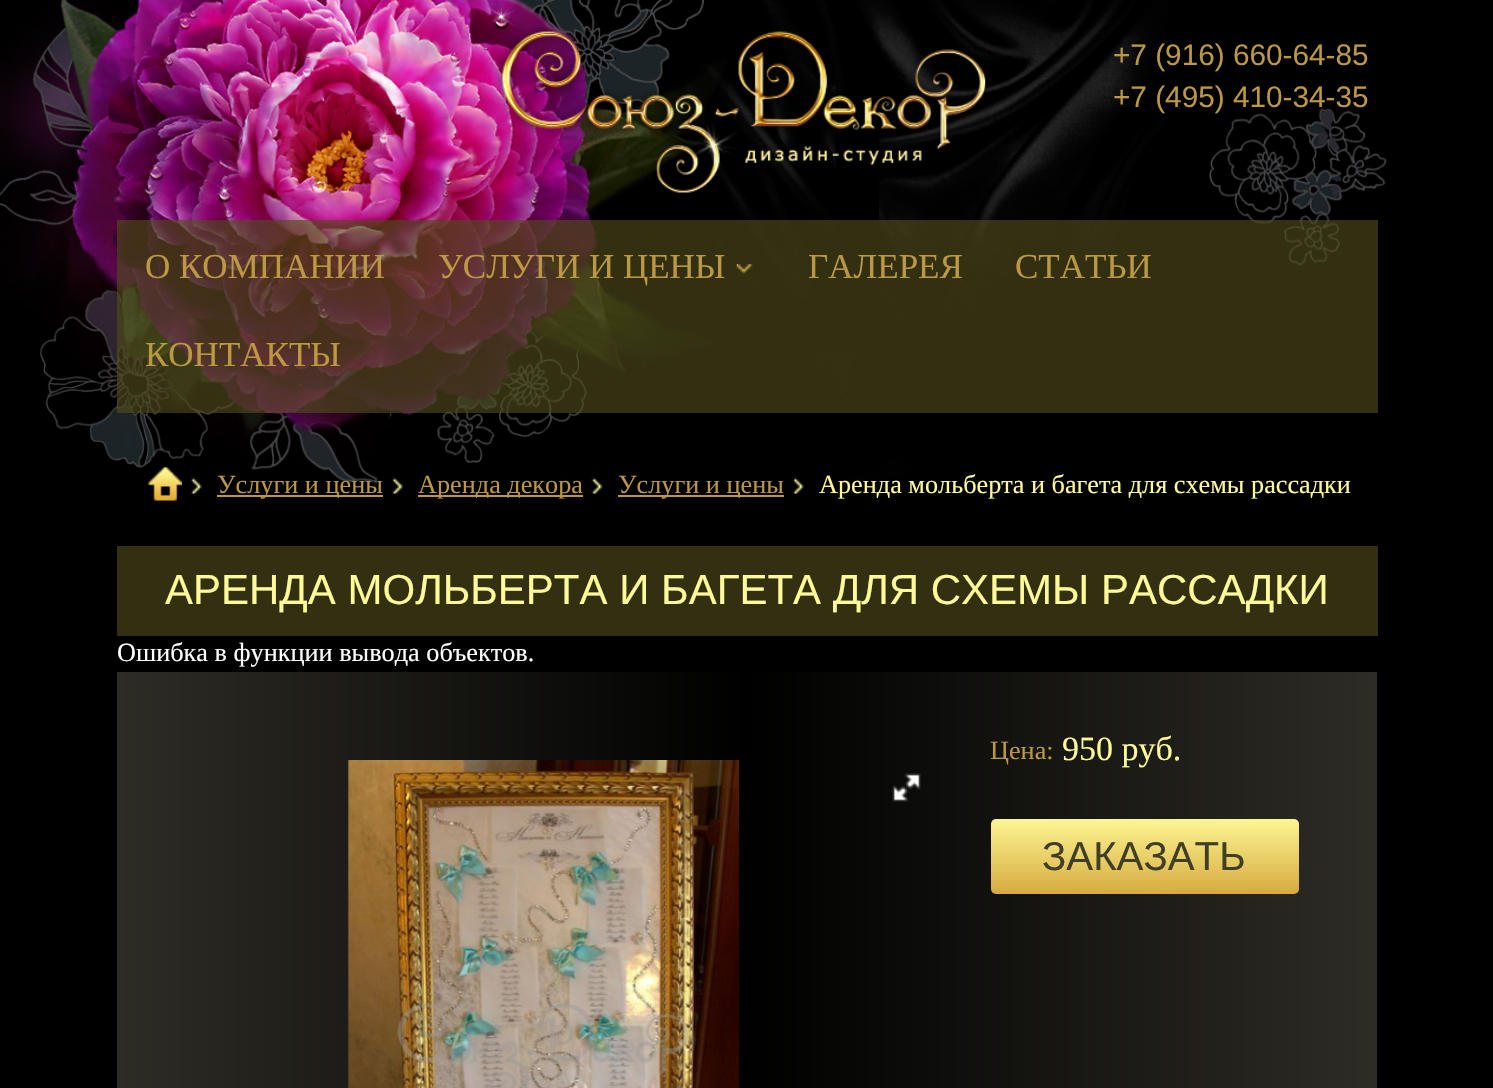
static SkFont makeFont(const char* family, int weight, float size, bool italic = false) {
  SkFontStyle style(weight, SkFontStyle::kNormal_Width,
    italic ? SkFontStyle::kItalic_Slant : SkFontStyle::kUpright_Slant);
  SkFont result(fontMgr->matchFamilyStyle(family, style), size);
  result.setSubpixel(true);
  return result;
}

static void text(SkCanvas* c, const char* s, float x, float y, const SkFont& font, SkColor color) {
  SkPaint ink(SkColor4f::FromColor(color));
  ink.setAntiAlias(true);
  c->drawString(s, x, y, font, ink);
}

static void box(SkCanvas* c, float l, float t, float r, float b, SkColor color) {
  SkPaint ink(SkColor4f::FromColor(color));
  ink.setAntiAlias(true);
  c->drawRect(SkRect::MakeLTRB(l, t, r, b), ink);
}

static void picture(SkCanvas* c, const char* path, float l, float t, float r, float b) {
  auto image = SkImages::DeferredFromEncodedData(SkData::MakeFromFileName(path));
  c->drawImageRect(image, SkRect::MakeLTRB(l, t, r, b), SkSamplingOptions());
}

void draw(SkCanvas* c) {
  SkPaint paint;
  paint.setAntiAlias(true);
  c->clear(0xff000000);
  picture(c, "img_01.png", 0, 0, 1387, 484);
  picture(c, "img_02.png", 494, 24, 988, 193);
  SkFont face1 = makeFont("Liberation Sans", 400, 29.75f);
  text(c, "+7 (916) 660-64-85", 1113, 65, face1, 0xffbc9842);
  text(c, "+7 (495) 410-34-35", 1113, 107, face1, 0xffbc9842);
  box(c, 117, 220, 1378, 413, 0xa34e4b1a);
  SkFont face2 = makeFont("Liberation Serif", 400, 35);
  text(c, "О КОМПАНИИ", 145, 278, face2, 0xffbc9842);
  text(c, "УСЛУГИ И ЦЕНЫ", 438, 278, face2, 0xffbc9842);
  picture(c, "img_03.png", 736, 264, 753, 274);
  text(c, "ГАЛЕРЕЯ", 808, 278, face2, 0xffbc9842);
  text(c, "СТАТЬИ", 1015, 278, face2, 0xffbc9842);
  text(c, "КОНТАКТЫ", 145, 366, face2, 0xffbc9842);
  picture(c, "img_04.png", 147, 466, 182, 501);
  picture(c, "img_05.png", 190, 476, 202, 494);
  box(c, 217, 495, 383, 497, 0xffbc9842);
  SkFont face3 = makeFont("Liberation Serif", 400, 26.25f);
  text(c, "Услуги и цены", 217, 493, face3, 0xffbc9842);
  picture(c, "img_06.png", 392, 476, 403, 494);
  box(c, 418, 495, 583, 497, 0xffbc9842);
  text(c, "Аренда декора", 418, 493, face3, 0xffbc9842);
  picture(c, "img_07.png", 591, 476, 603, 494);
  box(c, 618, 495, 784, 497, 0xffbc9842);
  text(c, "Услуги и цены", 618, 493, face3, 0xffbc9842);
  picture(c, "img_05.png", 792, 476, 804, 494);
  text(c, "Аренда мольберта и багета для схемы рассадки", 819, 493, face3, 0xfffffa97);
  box(c, 117, 546, 1378, 636, 0xff323011);
  SkFont face4 = makeFont("Liberation Sans", 400, 42);
  text(c, "АРЕНДА МОЛЬБЕРТА И БАГЕТА ДЛЯ СХЕМЫ РАССАДКИ", 165, 604, face4, 0xfffffa97);
  text(c, "Ошибка в функции вывода объектов.", 117, 661, face3, 0xffffffff);
  {
    const SkColor colors[] = {0xff2d2c25, 0xff000000, 0xff2d2c25};
    const float stops[] = {0, 0.5f, 1};
    const SkPoint ends[] = {{117, 1057}, {1377, 1057}};
    paint.setShader(SkGradientShader::MakeLinear(ends, colors, stops, 3, SkTileMode::kClamp));
    paint.setAlpha(255);
  }
  c->drawRect(SkRect::MakeLTRB(117, 672, 1377, 1088), paint);
  picture(c, "img_08.png", 347, 760, 739, 1088);
  picture(c, "img_09.png", 892, 773, 921, 802);
  text(c, "Цена:", 990, 759, face3, 0xffbc9842);
  SkFont face5 = makeFont("Liberation Serif", 400, 34);
  text(c, "950 руб.", 1062, 760, face5, 0xfffffa97);
  {
    const SkColor colors[] = {0xfffdf693, 0xffd6aa3f};
    const float stops[] = {0, 1};
    const SkPoint ends[] = {{1145, 819}, {1145, 894}};
    paint.setShader(SkGradientShader::MakeLinear(ends, colors, stops, 2, SkTileMode::kClamp));
    paint.setAlpha(255);
  }
  c->drawRoundRect(SkRect::MakeLTRB(991, 819, 1299, 894), 5, 5, paint);
  SkFont face6 = makeFont("Liberation Sans", 400, 40.25f);
  text(c, "ЗАКАЗАТЬ", 1042, 870, face6, 0xff403f26);
}
